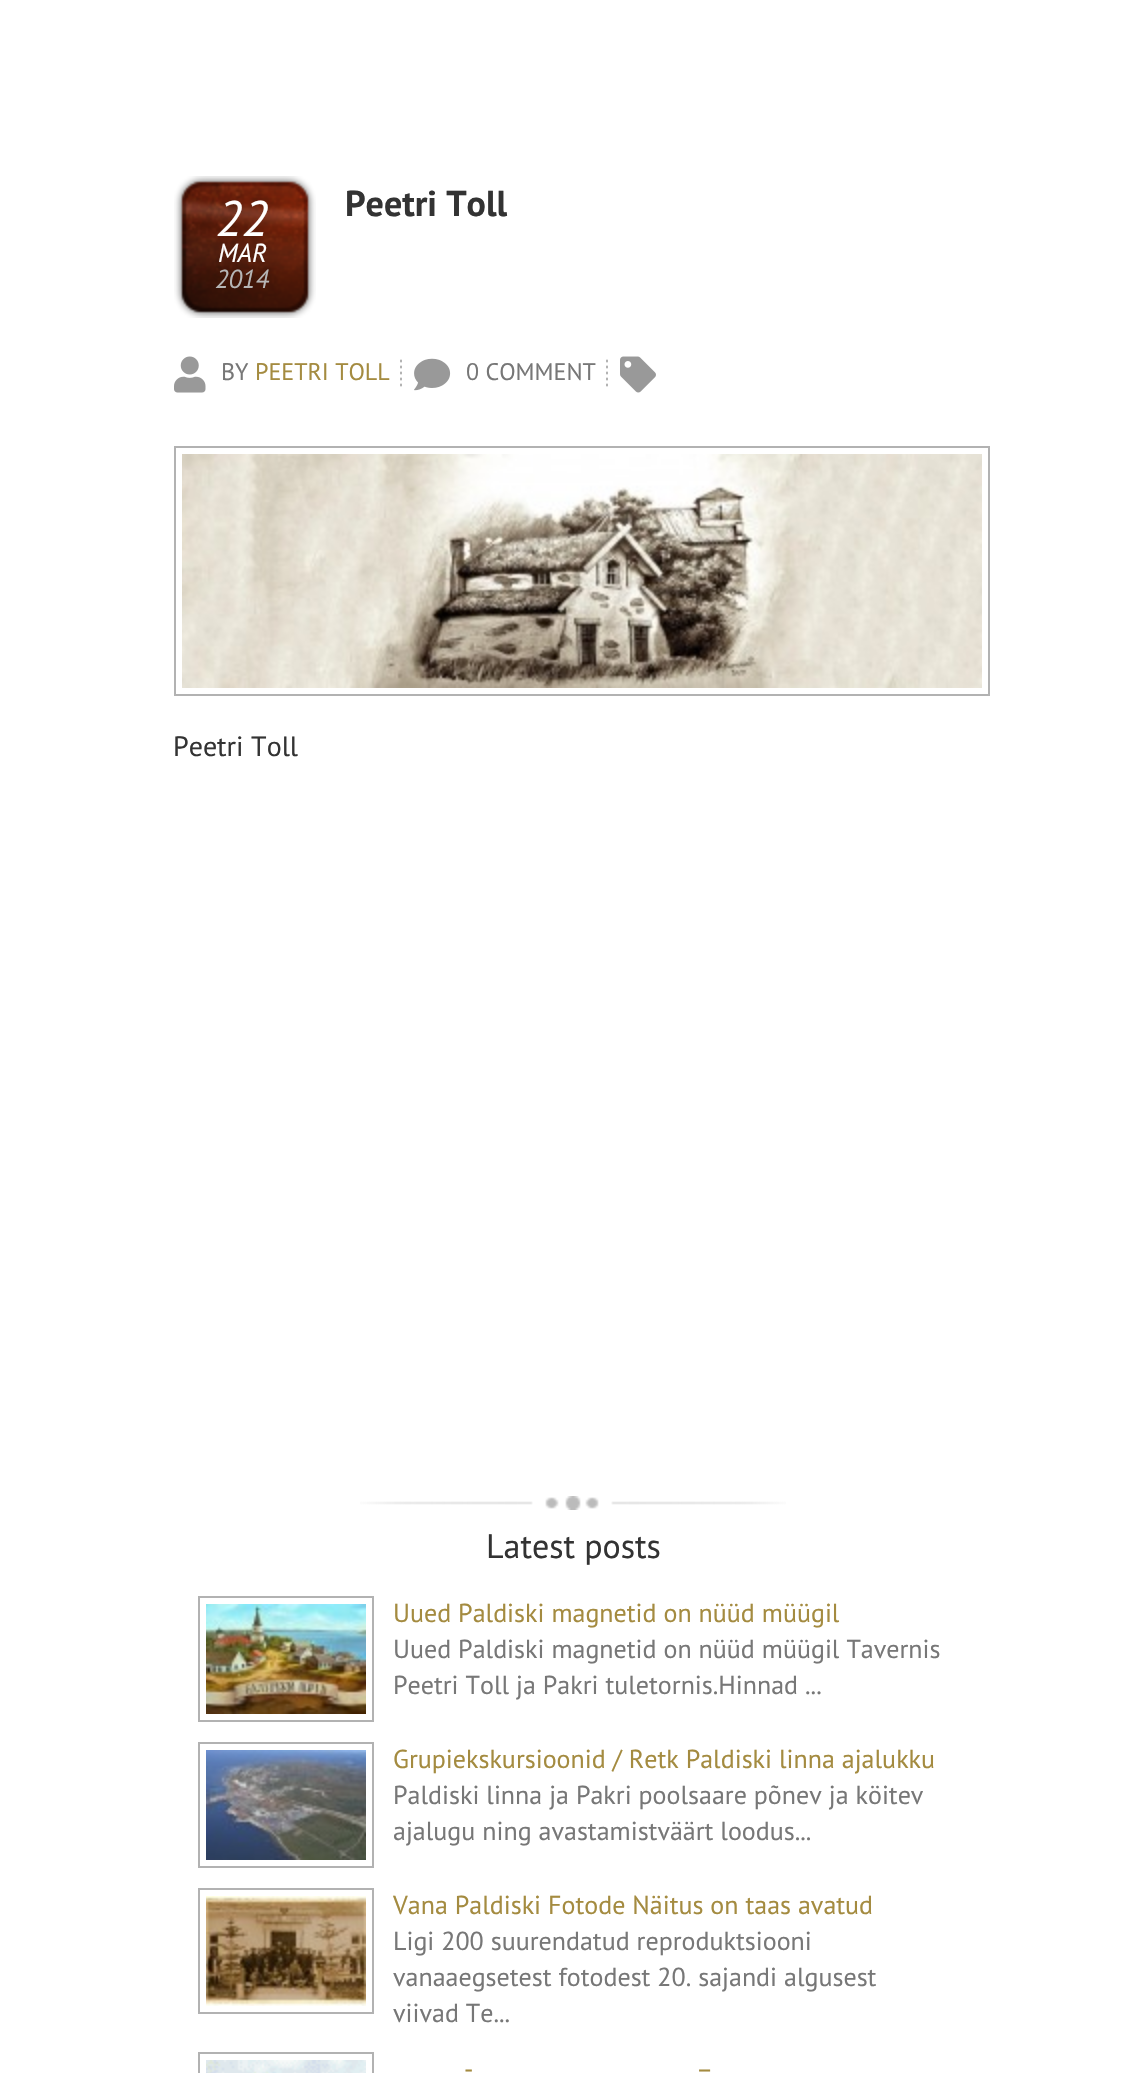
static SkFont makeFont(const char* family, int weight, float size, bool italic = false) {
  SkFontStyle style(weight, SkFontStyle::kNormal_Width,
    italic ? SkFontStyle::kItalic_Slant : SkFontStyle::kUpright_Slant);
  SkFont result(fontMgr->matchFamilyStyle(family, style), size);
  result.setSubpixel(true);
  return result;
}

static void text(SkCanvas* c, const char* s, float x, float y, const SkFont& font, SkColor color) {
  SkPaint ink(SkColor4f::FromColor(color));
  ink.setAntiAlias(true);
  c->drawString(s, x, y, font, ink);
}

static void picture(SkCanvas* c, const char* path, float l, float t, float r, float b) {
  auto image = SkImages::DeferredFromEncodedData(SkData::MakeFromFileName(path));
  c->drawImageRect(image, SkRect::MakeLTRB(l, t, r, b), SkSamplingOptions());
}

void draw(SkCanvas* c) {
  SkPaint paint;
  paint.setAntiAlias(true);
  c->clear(0xffffffff);
  picture(c, "img_01.png", 174, 176, 316, 318);
  SkFont face1 = makeFont("PT Sans", 400, 50, true);
  text(c, "22", 216, 236, face1, 0xffffffff);
  SkFont face2 = makeFont("PT Sans", 400, 26, true);
  text(c, "MAR", 218, 262, face2, 0xffffffff);
  text(c, "2014", 215, 288, face2, 0xffb6b6b6);
  SkFont face3 = makeFont("PT Sans", 700, 36);
  text(c, "Peetri Toll", 345, 216, face3, 0xff333333);
  picture(c, "img_02.png", 174, 356, 206, 393);
  SkFont face4 = makeFont("PT Sans", 400, 24);
  text(c, "BY", 221, 380, face4, 0xff777777);
  text(c, "PEETRI TOLL", 255, 380, face4, 0xffa48b40);
  picture(c, "img_03.png", 400, 359, 402, 387);
  picture(c, "img_04.png", 414, 358, 451, 391);
  text(c, "0 COMMENT", 466, 380, face4, 0xff777777);
  picture(c, "img_03.png", 606, 359, 608, 387);
  picture(c, "img_05.png", 620, 356, 656, 393);
  paint.setStyle(SkPaint::kStroke_Style);
  paint.setStrokeWidth(2);
  paint.setColor(0xffb2b2b2);
  c->drawRect(SkRect::MakeLTRB(175, 447, 989, 695), paint);
  picture(c, "img_06.png", 182, 454, 982, 688);
  SkFont face5 = makeFont("PT Sans", 400, 28);
  text(c, "Peetri Toll", 173, 756, face5, 0xff333333);
  picture(c, "img_07.png", 360, 1496, 786, 1510);
  SkFont face6 = makeFont("PT Sans", 400, 34);
  text(c, "Latest posts", 486, 1558, face6, 0xff333333);
  c->drawRect(SkRect::MakeLTRB(199, 1597, 373, 1721), paint);
  picture(c, "img_08.png", 206, 1604, 366, 1714);
  SkFont face7 = makeFont("PT Sans", 400, 26);
  text(c, "Uued Paldiski magnetid on nüüd müügil", 393, 1622, face7, 0xffa48b40);
  text(c, "Uued Paldiski magnetid on nüüd müügil Tavernis", 393, 1658, face7, 0xff777777);
  text(c, "Peetri Toll ja Pakri tuletornis.Hinnad ...", 393, 1694, face7, 0xff777777);
  c->drawRect(SkRect::MakeLTRB(199, 1743, 373, 1867), paint);
  picture(c, "img_09.png", 206, 1750, 366, 1860);
  text(c, "Grupiekskursioonid / Retk Paldiski linna ajalukku", 393, 1768, face7, 0xffa48b40);
  text(c, "Paldiski linna ja Pakri poolsaare põnev ja köitev", 393, 1804, face7, 0xff777777);
  text(c, "ajalugu ning avastamistväärt loodus...", 393, 1840, face7, 0xff777777);
  c->drawRect(SkRect::MakeLTRB(199, 1889, 373, 2013), paint);
  picture(c, "img_10.png", 206, 1896, 366, 2006);
  text(c, "Vana Paldiski Fotode Näitus on taas avatud", 393, 1914, face7, 0xffa48b40);
  text(c, "Ligi 200 suurendatud reproduktsiooni", 393, 1950, face7, 0xff777777);
  text(c, "vanaaegsetest fotodest 20. sajandi algusest", 393, 1986, face7, 0xff777777);
  text(c, "viivad Te...", 393, 2022, face7, 0xff777777);
  c->drawRect(SkRect::MakeLTRB(199, 2053, 373, 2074), paint);
  picture(c, "img_11.png", 206, 2060, 366, 2073);
  text(c, "-", 464, 2078, face7, 0xffa48b40);
  text(c, "–", 696, 2078, face7, 0xffa48b40);
}
